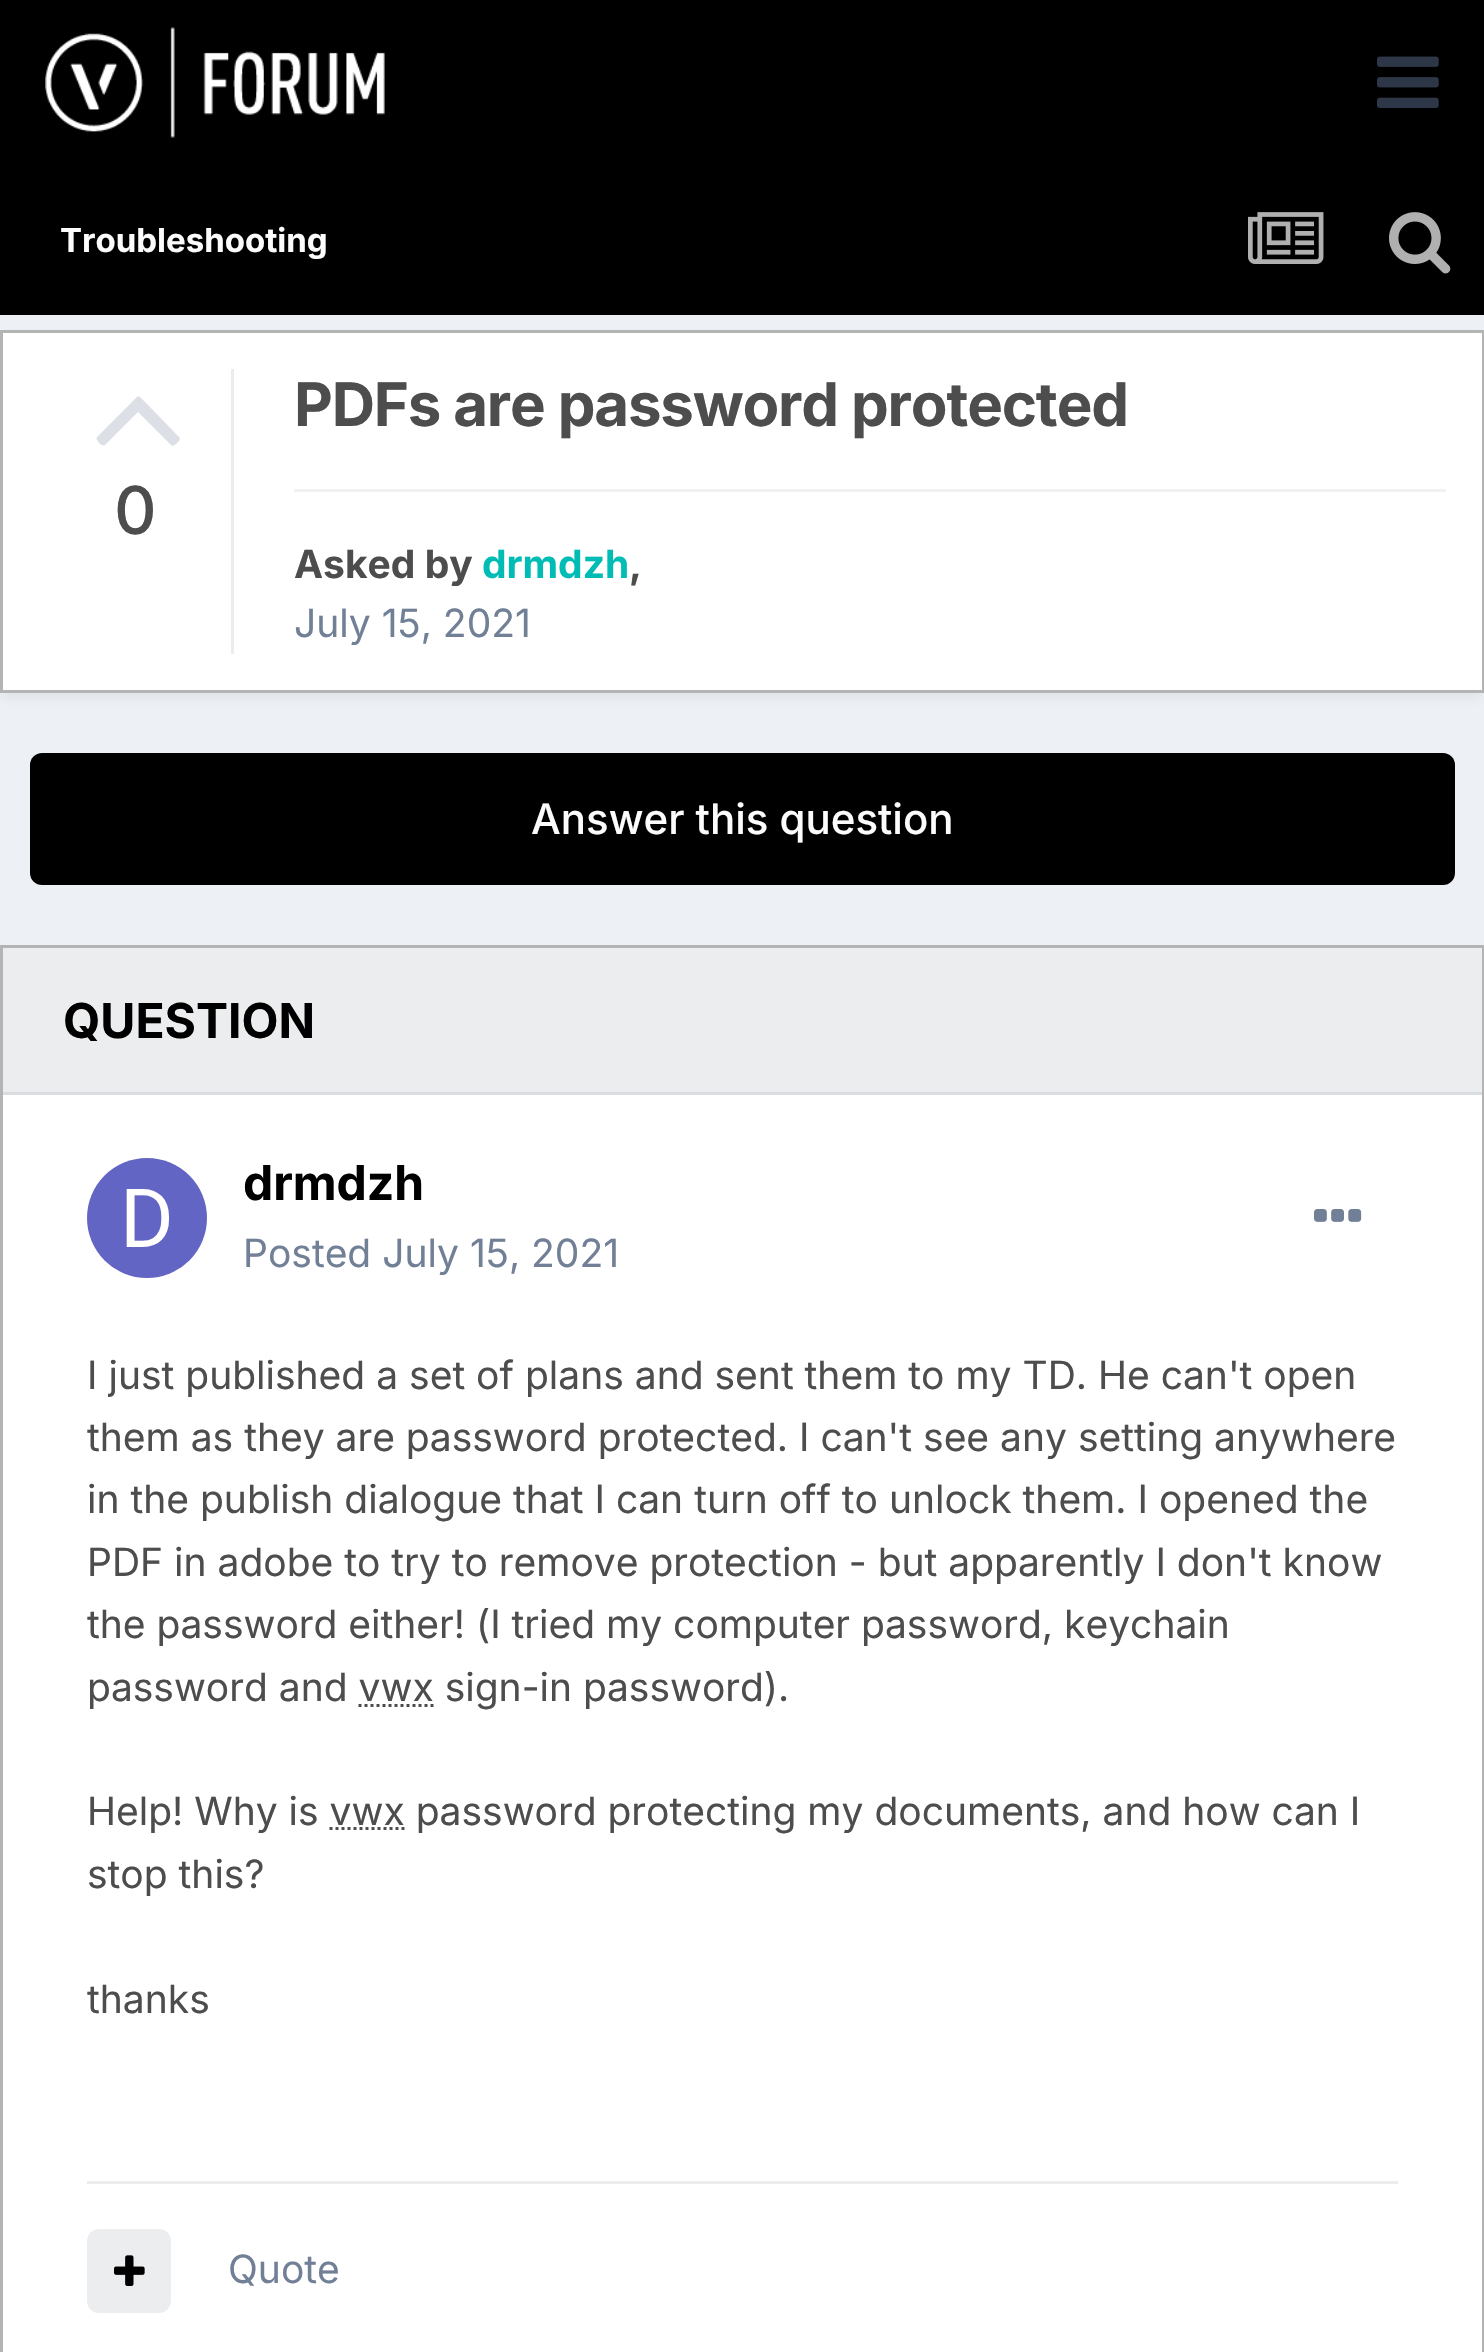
static SkFont makeFont(const char* family, int weight, float size, bool italic = false) {
  SkFontStyle style(weight, SkFontStyle::kNormal_Width,
    italic ? SkFontStyle::kItalic_Slant : SkFontStyle::kUpright_Slant);
  SkFont result(fontMgr->matchFamilyStyle(family, style), size);
  result.setSubpixel(true);
  return result;
}

static void text(SkCanvas* c, const char* s, float x, float y, const SkFont& font, SkColor color) {
  SkPaint ink(SkColor4f::FromColor(color));
  ink.setAntiAlias(true);
  c->drawString(s, x, y, font, ink);
}

static void spacedText(SkCanvas* c, const char* s, float x, float y, const SkFont& font, const SkPaint& ink, float letter, float word) {
  std::vector<SkGlyphID> glyphs(font.countText(s, strlen(s), SkTextEncoding::kUTF8));
  std::vector<float> xs(glyphs.size());
  font.textToGlyphs(s, strlen(s), SkTextEncoding::kUTF8, glyphs);
  font.getXPos(glyphs, xs, x);
  float extra = 0;
  for (size_t i = 0; i < glyphs.size(); i++) {
    xs[i] += extra;
    extra += letter + word * (glyphs[i] == font.unicharToGlyph(' '));
  }
  c->drawTextBlob(SkTextBlob::MakeFromPosHGlyphs(glyphs, xs, y, font), 0, 0, ink);
}

static void box(SkCanvas* c, float l, float t, float r, float b, SkColor color) {
  SkPaint ink(SkColor4f::FromColor(color));
  ink.setAntiAlias(true);
  c->drawRect(SkRect::MakeLTRB(l, t, r, b), ink);
}

static void roundBox(SkCanvas* c, float l, float t, float r, float b, float radius, SkColor color) {
  SkPaint ink(SkColor4f::FromColor(color));
  ink.setAntiAlias(true);
  c->drawRoundRect(SkRect::MakeLTRB(l, t, r, b), radius, radius, ink);
}

static void picture(SkCanvas* c, const char* path, float l, float t, float r, float b) {
  auto image = SkImages::DeferredFromEncodedData(SkData::MakeFromFileName(path));
  c->drawImageRect(image, SkRect::MakeLTRB(l, t, r, b), SkSamplingOptions());
}

void draw(SkCanvas* c) {
  SkPaint paint;
  paint.setAntiAlias(true);
  c->clear(0xffedf0f4);
  box(c, 0, 0, 1484, 315, 0xff000000);
  picture(c, "img_01.png", 45, 27, 385, 138);
  picture(c, "img_02.png", 1377, 56, 1439, 108);
  SkFont face1 = makeFont("Inter", 700, 33);
  text(c, "Troubleshooting", 60, 252, face1, 0xfffcfcfc);
  picture(c, "img_03.png", 1248, 212, 1324, 264);
  picture(c, "img_04.png", 1389, 212, 1451, 274);
  paint.setColor(0x1a3b3b3b);
  paint.setMaskFilter(SkMaskFilter::MakeBlur(kNormal_SkBlurStyle, 6));
  c->drawRect(SkRect::MakeLTRB(3, 339, 1482, 696), paint);
  paint.setMaskFilter(nullptr);
  paint.setColor(0xffffffff);
  c->drawRect(SkRect::MakeLTRB(1.5f, 331.5f, 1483.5f, 691.5f), paint);
  paint.setStyle(SkPaint::kStroke_Style);
  paint.setStrokeWidth(3);
  paint.setColor(0xffb4b4b4);
  c->drawRect(SkRect::MakeLTRB(1.5f, 331.5f, 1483.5f, 691.5f), paint);
  box(c, 231, 369, 234, 654, 0xffeaecef);
  paint.setStyle(SkPaint::kFill_Style);
  paint.setColor(0xffdcdfe5);
  c->drawPath(SkPathBuilder().moveTo(179, 437).cubicTo(181, 439, 179, 441, 177, 443).cubicTo(176, 444, 174, 447, 171, 445).lineTo(138, 412).lineTo(105, 445).cubicTo(103, 446, 102, 445, 100, 444).cubicTo(99, 442, 95, 439, 97, 437).lineTo(130, 404).cubicTo(140, 394, 137, 394, 147, 404).close().detach(), paint);
  SkFont face2 = makeFont("Inter", 500, 66);
  text(c, "0", 114, 534, face2, 0xff4d4d4d);
  SkFont face3 = makeFont("Inter", 700, 60);
  paint.setColor(0xff4d4d4d);
  spacedText(c, "PDFs are password protected", 294, 426, face3, paint, -1.2f, 0);
  box(c, 294, 489, 1446, 492, 0xfff1f1f1);
  SkFont face4 = makeFont("Inter", 700, 39);
  text(c, "Asked by", 294, 578, face4, 0xff4d4d4d);
  text(c, "drmdzh", 482, 578, face4, 0xff00bcb4);
  text(c, ",", 629, 578, face4, 0xff4d4d4d);
  SkFont face5 = makeFont("Inter", 400, 39);
  text(c, "July 15, 2021", 294, 637, face5, 0xff718096);
  roundBox(c, 30, 753, 1455, 885, 12, 0xff000000);
  SkFont face6 = makeFont("Inter", 500, 42);
  text(c, "Answer this question", 531, 834, face6, 0xfffcfcfc);
  box(c, 3, 1095, 1482, 2352, 0xffffffff);
  paint.setStyle(SkPaint::kStroke_Style);
  paint.setColor(0xffb4b4b4);
  c->drawRect(SkRect::MakeLTRB(1.5f, 946.5f, 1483.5f, 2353.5f), paint);
  box(c, 3, 948, 1482, 1092, 0xffebedee);
  box(c, 3, 1092, 1482, 1095, 0xffd9dde1);
  SkFont face7 = makeFont("Inter", 700, 48);
  text(c, "QUESTION", 63, 1038, face7, 0xff000000);
  picture(c, "img_05.png", 87, 1158, 207, 1278);
  text(c, "drmdzh", 243, 1200, face7, 0xff000000);
  text(c, "Posted July 15, 2021", 243, 1267, face5, 0xff718096);
  picture(c, "img_06.png", 1314, 1209, 1362, 1222);
  text(c, "I just published a set of plans and sent them to my TD. He can't open", 87, 1389, face5, 0xff4d4d4d);
  text(c, "them as they are password protected. I can't see any setting anywhere", 87, 1451, face5, 0xff4d4d4d);
  text(c, "in the publish dialogue that I can turn off to unlock them. I opened the", 87, 1513, face5, 0xff4d4d4d);
  text(c, "PDF in adobe to try to remove protection - but apparently I don't know", 87, 1576, face5, 0xff4d4d4d);
  text(c, "the password either! (I tried my computer password, keychain", 87, 1638, face5, 0xff4d4d4d);
  text(c, "password and vwx sign-in password).", 87, 1701, face5, 0xff4d4d4d);
  paint.setColor(0xff4d4d4d);
  paint.setPathEffect(SkDashPathEffect::Make({{3, 3}}, 0));
  c->drawPath(SkPathBuilder().moveTo(358.5f, 1705.5f).lineTo(433.5f, 1705.5f).detach(), paint);
  paint.setPathEffect(nullptr);
  text(c, "Help! Why is vwx password protecting my documents, and how can I", 87, 1825, face5, 0xff4d4d4d);
  paint.setPathEffect(SkDashPathEffect::Make({{3, 3}}, 0));
  c->drawPath(SkPathBuilder().moveTo(329.5f, 1828.5f).lineTo(405, 1828.5f).detach(), paint);
  paint.setPathEffect(nullptr);
  text(c, "stop this?", 87, 1888, face5, 0xff4d4d4d);
  text(c, "thanks", 87, 2013, face5, 0xff4d4d4d);
  box(c, 87, 2181, 1398, 2184, 0xffededed);
  roundBox(c, 87, 2229, 171, 2313, 12, 0xffebedee);
  picture(c, "img_07.png", 114, 2255, 145, 2286);
  text(c, "Quote", 228, 2283, face5, 0xff718096);
}
